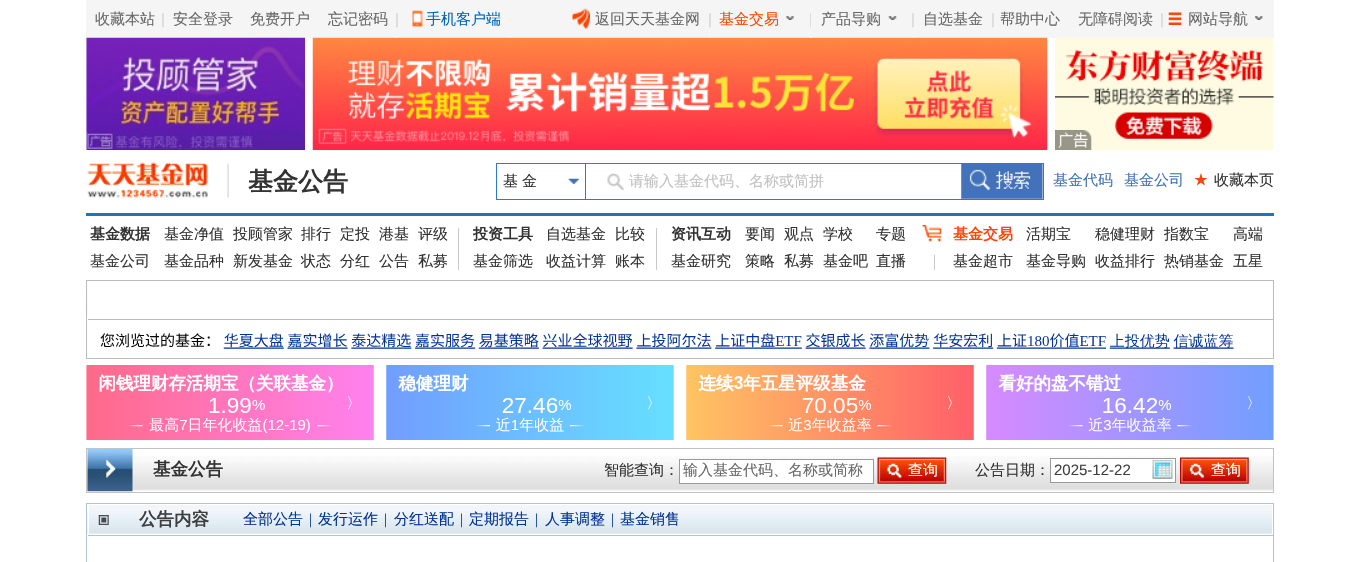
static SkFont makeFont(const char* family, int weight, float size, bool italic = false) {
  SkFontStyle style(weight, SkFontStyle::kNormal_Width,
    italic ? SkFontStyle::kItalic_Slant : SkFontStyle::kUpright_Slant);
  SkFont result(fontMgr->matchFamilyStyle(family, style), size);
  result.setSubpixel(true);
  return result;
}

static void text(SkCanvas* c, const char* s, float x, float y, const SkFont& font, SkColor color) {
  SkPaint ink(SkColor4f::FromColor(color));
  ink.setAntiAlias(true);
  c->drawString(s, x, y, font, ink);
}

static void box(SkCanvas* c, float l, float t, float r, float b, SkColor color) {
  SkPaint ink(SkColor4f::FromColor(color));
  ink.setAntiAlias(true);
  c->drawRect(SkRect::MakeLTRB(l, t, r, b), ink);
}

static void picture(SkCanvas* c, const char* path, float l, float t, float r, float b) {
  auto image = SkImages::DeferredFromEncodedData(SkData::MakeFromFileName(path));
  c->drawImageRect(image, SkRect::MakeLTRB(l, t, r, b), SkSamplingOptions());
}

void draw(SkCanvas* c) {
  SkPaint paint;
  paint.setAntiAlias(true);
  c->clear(0xffffffff);
  box(c, 86, 0, 1273, 38, 0xfff5f5f5);
  SkFont face1 = makeFont("WenQuanYi Zen Hei", 500, 15);
  text(c, "收藏本站", 95, 24, face1, 0xff686868);
  SkFont face2 = makeFont("Liberation Sans", 400, 15);
  text(c, "|", 161, 24, face2, 0xffd4d4d4);
  text(c, "安全登录", 173, 24, face1, 0xff686868);
  text(c, "免费开户", 250, 24, face1, 0xff686868);
  text(c, "忘记密码", 328, 24, face1, 0xff686868);
  picture(c, "img_08.png", 312, 37, 1048, 150);
  box(c, 510, 37, 511, 38, 0xfff5f5f5);
  box(c, 396, 37, 397, 38, 0xfff5f5f5);
  text(c, "|", 395, 24, face2, 0xffd4d4d4);
  picture(c, "img_01.png", 412, 10, 423, 28);
  text(c, "手机客户端", 426, 24, face1, 0xff0066bb);
  picture(c, "img_02.png", 572, 8, 590, 29);
  text(c, "返回天天基金网", 595, 24, face1, 0xff686868);
  box(c, 810, 37, 811, 38, 0xfff5f5f5);
  box(c, 709, 37, 710, 38, 0xfff5f5f5);
  text(c, "|", 708, 24, face2, 0xffd4d4d4);
  text(c, "基金交易", 719, 24, face1, 0xffff4400);
  picture(c, "img_03.png", 786, 16, 794, 20);
  text(c, "|", 809, 24, face2, 0xffd4d4d4);
  box(c, 913, 37, 914, 38, 0xfff5f5f5);
  box(c, 811, 13, 812, 38, 0xfff5f5f5);
  text(c, "产品导购", 821, 24, face1, 0xff686868);
  picture(c, "img_04.png", 888, 16, 897, 20);
  text(c, "|", 911, 24, face2, 0xffd4d4d4);
  text(c, "自选基金", 923, 24, face1, 0xff686868);
  text(c, "|", 991, 24, face2, 0xffd4d4d4);
  text(c, "帮助中心", 1000, 24, face1, 0xff686868);
  text(c, "无障碍阅读", 1078, 24, face1, 0xff686868);
  picture(c, "img_09.png", 1055, 37, 1274, 150);
  box(c, 1273, 0, 1274, 38, 0xfff5f5f5);
  box(c, 1161, 37, 1162, 38, 0xfff5f5f5);
  text(c, "|", 1160, 24, face2, 0xffd4d4d4);
  picture(c, "img_05.png", 1168, 12, 1182, 25);
  text(c, "网站导航", 1188, 24, face1, 0xff686868);
  picture(c, "img_06.png", 1255, 16, 1263, 20);
  picture(c, "img_07.png", 86, 37, 305, 150);
  picture(c, "img_10.png", 87, 162, 229, 198);
  SkFont face3 = makeFont("WenQuanYi Zen Hei", 700, 25);
  text(c, "基金公告", 248, 190, face3, 0xff333333);
  paint.setStyle(SkPaint::kStroke_Style);
  paint.setStrokeWidth(1);
  paint.setColor(0xff2979dc);
  c->drawRect(SkRect::MakeLTRB(496.5f, 163.5f, 1043.5f, 199.5f), paint);
  box(c, 585, 164, 586, 199, 0xff4371be);
  text(c, "基", 503, 186, face1, 0xff333333);
  text(c, "金", 522, 186, face1, 0xff333333);
  picture(c, "img_11.png", 568, 178, 579, 184);
  picture(c, "img_12.png", 607, 173, 624, 191);
  text(c, "请输入基金代码、名称或简拼", 629, 186, face1, 0xffc2c2c2);
  box(c, 961, 164, 1043, 199, 0xffefefef);
  picture(c, "img_13.png", 961, 163, 1043, 199);
  text(c, "基金代码", 1053, 185, face1, 0xff4071b6);
  text(c, "基金公司", 1124, 185, face1, 0xff4071b6);
  SkFont face4 = makeFont("DejaVu Sans", 700, 15);
  text(c, "★", 1194, 185, face4, 0xffff4400);
  text(c, "收藏本页", 1214, 185, face1, 0xff333333);
  box(c, 86, 213, 1274, 216, 0xff2772b6);
  SkFont face5 = makeFont("WenQuanYi Zen Hei", 700, 15);
  text(c, "基金数据", 90, 239, face5, 0xff333333);
  text(c, "基金净值", 164, 239, face1, 0xff333333);
  text(c, "投顾管家", 233, 239, face1, 0xff333333);
  text(c, "排行", 301, 239, face1, 0xff333333);
  text(c, "定投", 340, 239, face1, 0xff333333);
  text(c, "港基", 379, 239, face1, 0xff333333);
  text(c, "评级", 418, 239, face1, 0xff333333);
  text(c, "基金公司", 90, 266, face1, 0xff333333);
  text(c, "基金品种", 164, 266, face1, 0xff333333);
  text(c, "新发基金", 233, 266, face1, 0xff333333);
  text(c, "状态", 301, 266, face1, 0xff333333);
  text(c, "分红", 340, 266, face1, 0xff333333);
  text(c, "公告", 379, 266, face1, 0xff333333);
  text(c, "私募", 418, 266, face1, 0xff333333);
  box(c, 458, 228, 459, 270, 0xffc9c9c9);
  text(c, "投资工具", 473, 239, face5, 0xff333333);
  text(c, "自选基金", 546, 239, face1, 0xff333333);
  text(c, "比较", 615, 239, face1, 0xff333333);
  text(c, "基金筛选", 473, 266, face1, 0xff333333);
  text(c, "收益计算", 546, 266, face1, 0xff333333);
  text(c, "账本", 615, 266, face1, 0xff333333);
  box(c, 656, 228, 657, 270, 0xffc9c9c9);
  text(c, "资讯互动", 671, 239, face5, 0xff333333);
  text(c, "要闻", 745, 239, face1, 0xff333333);
  text(c, "观点", 784, 239, face1, 0xff333333);
  text(c, "学校", 823, 239, face1, 0xff333333);
  text(c, "专题", 876, 239, face1, 0xff333333);
  text(c, "基金研究", 671, 266, face1, 0xff333333);
  text(c, "策略", 745, 266, face1, 0xff333333);
  text(c, "私募", 784, 266, face1, 0xff333333);
  text(c, "基金吧", 823, 266, face1, 0xff333333);
  text(c, "直播", 876, 266, face1, 0xff333333);
  picture(c, "img_14.png", 922, 225, 942, 242);
  box(c, 934, 255, 935, 270, 0xffc9c9c9);
  text(c, "基金交易", 953, 239, face5, 0xffff4400);
  text(c, "活期宝", 1026, 239, face1, 0xff333333);
  text(c, "稳健理财", 1095, 239, face1, 0xff333333);
  text(c, "指数宝", 1164, 239, face1, 0xff333333);
  text(c, "高端", 1233, 239, face1, 0xff333333);
  text(c, "基金超市", 953, 266, face1, 0xff333333);
  text(c, "基金导购", 1026, 266, face1, 0xff333333);
  text(c, "收益排行", 1095, 266, face1, 0xff333333);
  text(c, "热销基金", 1164, 266, face1, 0xff333333);
  text(c, "五星", 1233, 266, face1, 0xff333333);
  paint.setColor(0xffbcbcbc);
  c->drawRect(SkRect::MakeLTRB(86.5f, 280.5f, 1273.5f, 358.5f), paint);
  picture(c, "img_15.png", 87, 282, 88, 320);
  box(c, 88, 319, 1273, 320, 0xffbcbcbc);
  picture(c, "img_16.png", 100, 333, 1234, 349);
  picture(c, "img_17.png", 86, 365, 1274, 440);
  picture(c, "img_18.png", 87, 456, 1273, 491);
  paint.setColor(0xffc3c3c3);
  c->drawRect(SkRect::MakeLTRB(86.5f, 448.5f, 1273.5f, 492.5f), paint);
  picture(c, "img_19.png", 87, 448, 133, 492);
  SkFont face6 = makeFont("WenQuanYi Zen Hei", 700, 17.5f);
  text(c, "基金公告", 153, 475, face6, 0xff333333);
  text(c, "智能查询：", 604, 475, face1, 0xff333333);
  paint.setStyle(SkPaint::kFill_Style);
  paint.setColor(0xffffffff);
  c->drawRect(SkRect::MakeLTRB(679.5f, 459.5f, 873.5f, 483.5f), paint);
  paint.setStyle(SkPaint::kStroke_Style);
  paint.setColor(0xff999999);
  c->drawRect(SkRect::MakeLTRB(679.5f, 459.5f, 873.5f, 483.5f), paint);
  c->save();
  c->clipRect(SkRect::MakeLTRB(683, 460, 870, 481));
  text(c, "输入基金代码、名称或简称", 683, 475, face1, 0xff686868);
  c->restore();
  picture(c, "img_20.png", 877, 457, 947, 484);
  text(c, "查询", 908, 475, face1, 0xffffffff);
  text(c, "公告日期：", 975, 475, face1, 0xff333333);
  box(c, 1051, 459, 1175, 482, 0xffffffff);
  picture(c, "img_21.png", 1152, 460, 1173, 479);
  c->drawRect(SkRect::MakeLTRB(1050.5f, 458.5f, 1175.5f, 482.5f), paint);
  text(c, "2025-12-22", 1054, 475, face2, 0xff3f3f3f);
  picture(c, "img_22.png", 1180, 457, 1249, 484);
  text(c, "查询", 1211, 475, face1, 0xffffffff);
  paint.setColor(0xffafc4d5);
  c->drawRect(SkRect::MakeLTRB(86.5f, 503.5f, 1273.5f, 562.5f), paint);
  box(c, 88, 535, 1273, 536, 0xffafc4d5);
  picture(c, "img_23.png", 87, 505, 1272, 534);
  paint.setColor(0xffffffff);
  c->drawRect(SkRect::MakeLTRB(88.5f, 504.5f, 1272.5f, 534.5f), paint);
  picture(c, "img_24.png", 98, 515, 109, 525);
  text(c, "公告内容", 139, 525, face6, 0xff3f3f3f);
  text(c, "全部公告", 243, 524, face1, 0xff043396);
  SkFont face7 = makeFont("Liberation Serif", 400, 15);
  text(c, "|", 309, 524, face7, 0xff043396);
  text(c, "发行运作", 318, 524, face1, 0xff043396);
  text(c, "|", 384, 524, face7, 0xff043396);
  text(c, "分红送配", 394, 524, face1, 0xff043396);
  text(c, "|", 460, 524, face7, 0xff043396);
  text(c, "定期报告", 469, 524, face1, 0xff043396);
  text(c, "|", 535, 524, face7, 0xff043396);
  text(c, "人事调整", 545, 524, face1, 0xff043396);
  text(c, "|", 611, 524, face7, 0xff043396);
  text(c, "基金销售", 620, 524, face1, 0xff043396);
}
